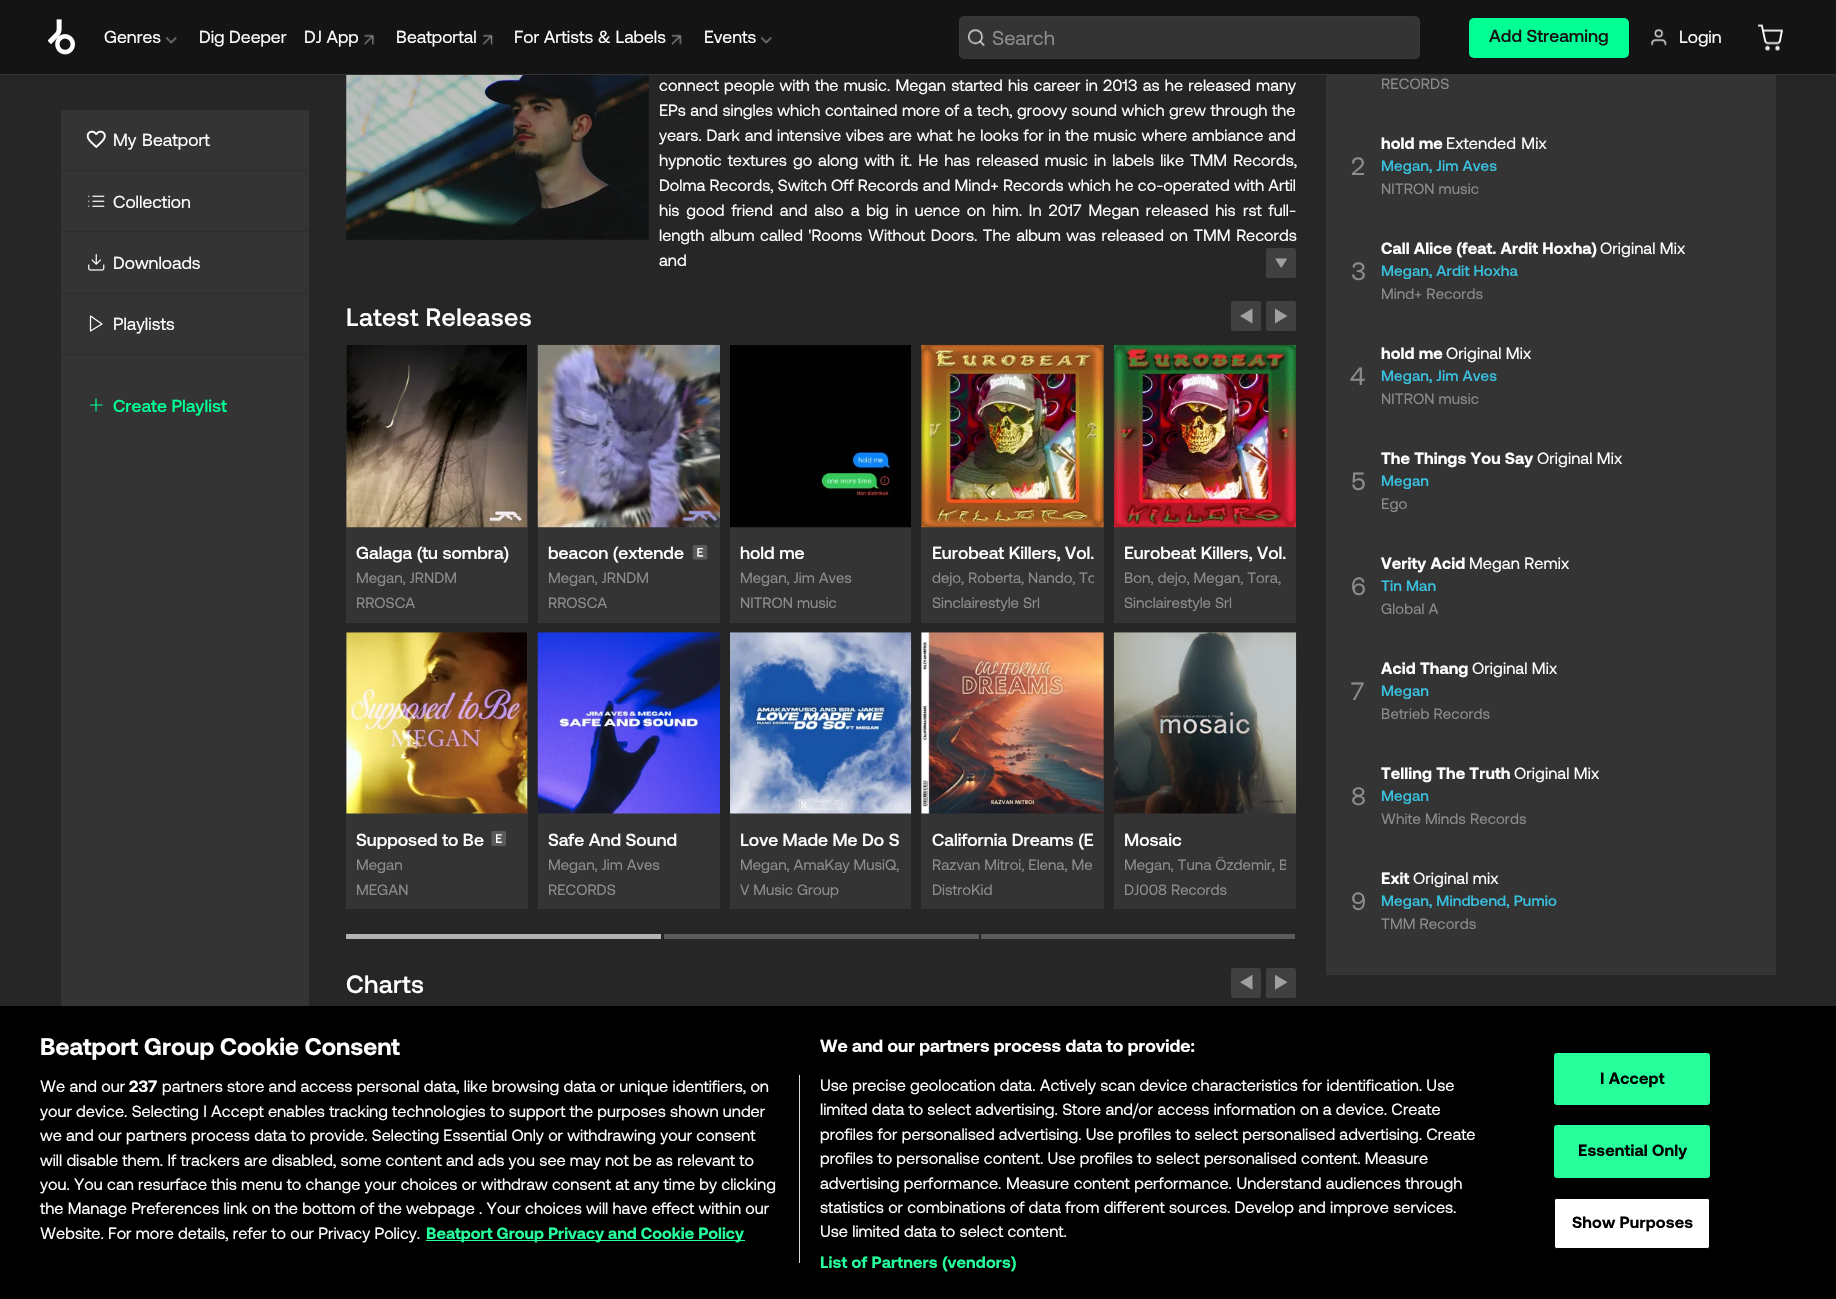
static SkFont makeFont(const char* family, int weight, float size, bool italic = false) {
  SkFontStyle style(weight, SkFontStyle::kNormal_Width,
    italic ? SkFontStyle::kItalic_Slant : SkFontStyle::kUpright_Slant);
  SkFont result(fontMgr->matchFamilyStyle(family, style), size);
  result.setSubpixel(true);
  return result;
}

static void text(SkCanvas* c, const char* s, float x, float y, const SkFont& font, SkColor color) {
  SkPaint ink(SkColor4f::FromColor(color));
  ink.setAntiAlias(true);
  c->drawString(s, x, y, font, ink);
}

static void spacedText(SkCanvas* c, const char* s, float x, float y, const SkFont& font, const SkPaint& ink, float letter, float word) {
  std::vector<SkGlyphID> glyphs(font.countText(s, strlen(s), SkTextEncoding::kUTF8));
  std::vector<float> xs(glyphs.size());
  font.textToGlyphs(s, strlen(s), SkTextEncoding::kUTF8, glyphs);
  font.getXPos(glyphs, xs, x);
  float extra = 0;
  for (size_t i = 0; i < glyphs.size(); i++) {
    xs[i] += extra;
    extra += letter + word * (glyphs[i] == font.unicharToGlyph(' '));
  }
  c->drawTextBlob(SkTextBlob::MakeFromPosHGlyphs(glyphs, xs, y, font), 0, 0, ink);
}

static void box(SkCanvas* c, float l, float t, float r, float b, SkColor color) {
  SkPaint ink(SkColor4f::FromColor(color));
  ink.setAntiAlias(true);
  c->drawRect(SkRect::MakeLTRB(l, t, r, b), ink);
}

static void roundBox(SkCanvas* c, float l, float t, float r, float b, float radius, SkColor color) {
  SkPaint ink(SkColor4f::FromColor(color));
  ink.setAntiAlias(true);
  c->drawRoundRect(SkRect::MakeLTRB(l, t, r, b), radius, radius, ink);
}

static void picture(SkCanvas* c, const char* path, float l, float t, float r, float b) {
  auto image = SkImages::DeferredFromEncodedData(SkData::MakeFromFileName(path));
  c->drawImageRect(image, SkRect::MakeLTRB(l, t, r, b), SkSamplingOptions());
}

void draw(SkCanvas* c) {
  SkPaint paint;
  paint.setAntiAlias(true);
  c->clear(0xff262626);
  box(c, 0, 0, 1836, 74, 0xff141414);
  box(c, 0, 74, 1836, 75, 0xff333333);
  picture(c, "img_01.png", 48, 19, 75, 55);
  SkFont face1 = makeFont("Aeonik", 400, 17.5f);
  text(c, "Genres", 104, 43, face1, 0xffffffff);
  picture(c, "img_02.png", 165, 36, 177, 44);
  text(c, "Dig Deeper", 199, 43, face1, 0xffffffff);
  text(c, "DJ App", 304, 43, face1, 0xffffffff);
  picture(c, "img_03.png", 364, 34, 375, 45);
  text(c, "Beatportal", 396, 43, face1, 0xffffffff);
  picture(c, "img_04.png", 482, 34, 493, 45);
  text(c, "For Artists & Labels", 514, 43, face1, 0xffffffff);
  picture(c, "img_05.png", 671, 34, 682, 45);
  text(c, "Events", 704, 43, face1, 0xffffffff);
  picture(c, "img_02.png", 760, 36, 772, 44);
  paint.setColor(0xff343434);
  c->drawRoundRect(SkRect::MakeLTRB(959.5f, 16.5f, 1419.5f, 58.5f), 4.5f, 4.5f, paint);
  paint.setStyle(SkPaint::kStroke_Style);
  paint.setStrokeWidth(1);
  paint.setColor(0xff383838);
  c->drawRoundRect(SkRect::MakeLTRB(959.5f, 16.5f, 1419.5f, 58.5f), 4.5f, 4.5f, paint);
  picture(c, "img_06.png", 967, 29, 985, 47);
  box(c, 1417, 18, 1419, 58, 0xff343434);
  SkFont face2 = makeFont("Aeonik", 400, 20);
  text(c, "Search", 992, 45, face2, 0xff8c8c8c);
  roundBox(c, 1469, 18, 1629, 58, 5, 0xff01ff95);
  SkFont face3 = makeFont("Aeonik", 500, 17.5f);
  text(c, "Add Streaming", 1489, 42, face3, 0xff141414);
  picture(c, "img_07.png", 1651, 29, 1667, 46);
  text(c, "Login", 1679, 43, face1, 0xffffffff);
  picture(c, "img_08.png", 1758, 24, 1783, 51);
  box(c, 61, 110, 309, 1006, 0xff343434);
  box(c, 61, 170, 309, 171, 0xff2d2d2d);
  picture(c, "img_09.png", 86, 130, 106, 149);
  paint.setStyle(SkPaint::kFill_Style);
  paint.setColor(0xffffffff);
  spacedText(c, "My Beatport", 113, 146, face1, paint, 0, 1);
  box(c, 61, 231, 309, 232, 0xff2d2d2d);
  picture(c, "img_10.png", 88, 195, 105, 207);
  text(c, "Collection", 113, 208, face1, 0xffffffff);
  box(c, 61, 293, 309, 294, 0xff2d2d2d);
  picture(c, "img_11.png", 88, 254, 105, 271);
  text(c, "Downloads", 113, 269, face1, 0xffffffff);
  box(c, 61, 354, 309, 355, 0xff2d2d2d);
  paint.setStyle(SkPaint::kStroke_Style);
  paint.setStrokeWidth(1.2f);
  paint.setStrokeCap(SkPaint::kRound_Cap);
  paint.setStrokeJoin(SkPaint::kRound_Join);
  c->drawPath(SkPathBuilder().moveTo(90.5f, 316).lineTo(102, 324).lineTo(90.5f, 331).close().detach(), paint);
  text(c, "Playlists", 113, 330, face1, 0xffffffff);
  paint.setColor(0xff01ff95);
  c->drawPath(SkPathBuilder().moveTo(96, 399).lineTo(96, 411).moveTo(90.5f, 405).lineTo(102, 405).detach(), paint);
  text(c, "Create Playlist", 113, 412, face3, 0xff01ff95);
  picture(c, "img_12.png", 346, 75, 649, 240);
  SkFont face4 = makeFont("Aeonik", 400, 16.25f);
  paint.setStyle(SkPaint::kFill_Style);
  paint.setColor(0xffffffff);
  spacedText(c, "connect people with the music. Megan started his career in 2013 as he released many", 659, 91, face4, paint, 0, 1);
  spacedText(c, "EPs and singles which contained more of a tech, groovy sound which grew through the", 659, 116, face4, paint, 0, 0.25f);
  spacedText(c, "years. Dark and intensive vibes are what he looks for in the music where ambiance and", 659, 141, face4, paint, 0, 0.5f);
  spacedText(c, "hypnotic textures go along with it. He has released music in labels like TMM Records,", 659, 166, face4, paint, 0, 1.75f);
  text(c, "Dolma Records, Switch Off Records and Mind+ Records which he co-operated with Artil", 659, 191, face4, 0xffffffff);
  spacedText(c, "his good friend and also a big in uence on him. In 2017 Megan released his", 659, 216, face4, paint, 0, 2.6f);
  spacedText(c, "rst full-", 1243, 216, face4, paint, 0, 2.6f);
  spacedText(c, "length album called 'Rooms Without Doors. The album was released on TMM Records", 659, 241, face4, paint, 0, 1.25f);
  text(c, "and", 659, 266, face4, 0xffffffff);
  roundBox(c, 1266, 248, 1296, 278, 2.5f, 0xff404040);
  picture(c, "img_13.png", 1275, 258, 1287, 268);
  SkFont face5 = makeFont("Aeonik", 500, 25);
  spacedText(c, "Latest Releases", 346, 326, face5, paint, 0.4f, 0);
  roundBox(c, 1231, 301, 1261, 331, 2.5f, 0xff404040);
  picture(c, "img_14.png", 1240, 308, 1253, 324);
  roundBox(c, 1266, 301, 1296, 331, 2.5f, 0xff404040);
  picture(c, "img_15.png", 1275, 308, 1288, 324);
  box(c, 346, 345, 528, 623, 0xff343434);
  picture(c, "img_16.png", 346, 345, 528, 528);
  text(c, "Galaga (tu sombra)", 356, 559, face3, 0xffffffff);
  SkFont face6 = makeFont("Aeonik", 400, 15);
  text(c, "Megan, JRNDM", 356, 583, face6, 0xff8c8c8c);
  text(c, "RROSCA", 356, 608, face6, 0xff8c8c8c);
  box(c, 538, 527, 720, 623, 0xff343434);
  picture(c, "img_17.png", 537, 344, 720, 528);
  text(c, "beacon (extende", 548, 559, face3, 0xffffffff);
  picture(c, "img_18.png", 692, 545, 708, 560);
  text(c, "Megan, JRNDM", 548, 583, face6, 0xff8c8c8c);
  text(c, "RROSCA", 548, 608, face6, 0xff8c8c8c);
  box(c, 730, 527, 911, 623, 0xff343434);
  picture(c, "img_19.png", 730, 345, 911, 528);
  text(c, "hold me", 740, 559, face3, 0xffffffff);
  text(c, "Megan, Jim Aves", 740, 583, face6, 0xff8c8c8c);
  text(c, "NITRON music", 740, 608, face6, 0xff8c8c8c);
  box(c, 921, 345, 1104, 623, 0xff343434);
  picture(c, "img_20.png", 921, 344, 1104, 528);
  text(c, "Eurobeat Killers, Vol.", 932, 559, face3, 0xffffffff);
  text(c, "dejo, Roberta", 932, 583, face6, 0xff8c8c8c);
  text(c, ", Nando,", 1021, 583, face6, 0xff8c8c8c);
  c->save();
  c->clipRect(SkRect::MakeLTRB(931, 568, 1094, 588));
  text(c, "To", 1079, 583, face6, 0xff8c8c8c);
  c->restore();
  text(c, "Sinclairestyle Srl", 932, 608, face6, 0xff8c8c8c);
  box(c, 1114, 527, 1296, 623, 0xff343434);
  picture(c, "img_21.png", 1113, 344, 1297, 528);
  text(c, "Eurobeat Killers, Vol.", 1124, 559, face3, 0xffffffff);
  text(c, "Bon, dejo, Megan, Tora,", 1124, 583, face6, 0xff8c8c8c);
  text(c, "Sinclairestyle Srl", 1124, 608, face6, 0xff8c8c8c);
  box(c, 346, 633, 528, 909, 0xff343434);
  picture(c, "img_22.png", 346, 632, 528, 814);
  c->save();
  c->clipRect(SkRect::MakeLTRB(356, 824, 484, 849));
  text(c, "Supposed to Be", 356, 846, face3, 0xffffffff);
  c->restore();
  picture(c, "img_23.png", 491, 831, 506, 846);
  text(c, "Megan", 356, 870, face6, 0xff8c8c8c);
  text(c, "MEGAN", 356, 895, face6, 0xff8c8c8c);
  box(c, 538, 813, 720, 909, 0xff343434);
  picture(c, "img_24.png", 537, 632, 720, 814);
  text(c, "Safe And Sound", 548, 846, face3, 0xffffffff);
  text(c, "Megan, Jim Aves", 548, 870, face6, 0xff8c8c8c);
  text(c, "RECORDS", 548, 895, face6, 0xff8c8c8c);
  box(c, 730, 813, 911, 909, 0xff343434);
  picture(c, "img_25.png", 730, 632, 912, 814);
  text(c, "Love Made Me Do S", 740, 846, face3, 0xffffffff);
  text(c, "Megan, AmaKay MusiQ,", 740, 870, face6, 0xff8c8c8c);
  text(c, "V Music Group", 740, 895, face6, 0xff8c8c8c);
  box(c, 921, 633, 1104, 909, 0xff343434);
  picture(c, "img_26.png", 921, 632, 1104, 814);
  text(c, "California Dreams (E", 932, 846, face3, 0xffffffff);
  text(c, "Razvan Mitroi, Elena, Me", 932, 870, face6, 0xff8c8c8c);
  text(c, "DistroKid", 932, 895, face6, 0xff8c8c8c);
  box(c, 1114, 813, 1296, 909, 0xff343434);
  picture(c, "img_27.png", 1113, 632, 1297, 814);
  text(c, "Mosaic", 1124, 846, face3, 0xffffffff);
  text(c, "Megan, Tuna Özdemir,", 1124, 870, face6, 0xff8c8c8c);
  c->save();
  c->clipRect(SkRect::MakeLTRB(1124, 854, 1286, 874));
  text(c, "B", 1279, 870, face6, 0xff8c8c8c);
  c->restore();
  text(c, "DJ008 Records", 1124, 895, face6, 0xff8c8c8c);
  box(c, 346, 934, 661, 939, 0xffb3b3b3);
  box(c, 664, 934, 979, 939, 0xff5c5c5c);
  box(c, 981, 934, 1295, 939, 0xff5c5c5c);
  spacedText(c, "Charts", 346, 993, face5, paint, 0.4f, 0);
  roundBox(c, 1231, 968, 1261, 998, 2.5f, 0xff404040);
  picture(c, "img_28.png", 1240, 974, 1253, 990);
  roundBox(c, 1266, 968, 1296, 998, 2.5f, 0xff404040);
  picture(c, "img_29.png", 1275, 974, 1288, 990);
  box(c, 1326, 75, 1776, 975, 0xff343434);
  paint.setColor(0xff8c8c8c);
  spacedText(c, "RECORDS", 1381, 89, face6, paint, 0.1f, 0);
  SkFont face7 = makeFont("Aeonik", 400, 25);
  text(c, "2", 1351, 175, face7, 0xff8c8c8c);
  SkFont face8 = makeFont("Aeonik", 700, 16.25f);
  paint.setColor(0xffffffff);
  spacedText(c, "hold me", 1381, 149, face8, paint, 0.1f, 0);
  spacedText(c, "Extended Mix", 1446, 149, face4, paint, 0.1f, 1);
  SkFont face9 = makeFont("Aeonik", 500, 15);
  paint.setColor(0xff39c0de);
  spacedText(c, "Megan, Jim Aves", 1381, 171, face9, paint, 0.1f, 0);
  paint.setColor(0xff8c8c8c);
  spacedText(c, "NITRON music", 1381, 194, face6, paint, 0.1f, 0);
  text(c, "3", 1351, 280, face7, 0xff8c8c8c);
  paint.setColor(0xffffffff);
  spacedText(c, "Call Alice (feat. Ardit Hoxha)", 1381, 254, face8, paint, 0.1f, 0);
  spacedText(c, "Original Mix", 1600, 254, face4, paint, 0.1f, 0);
  paint.setColor(0xff39c0de);
  spacedText(c, "Megan, Ardit Hoxha", 1381, 276, face9, paint, 0.1f, 0);
  paint.setColor(0xff8c8c8c);
  spacedText(c, "Mind+ Records", 1381, 299, face6, paint, 0.1f, 0);
  text(c, "4", 1350, 385, face7, 0xff8c8c8c);
  paint.setColor(0xffffffff);
  spacedText(c, "hold me", 1381, 359, face8, paint, 0.1f, 0);
  spacedText(c, "Original Mix", 1446, 359, face4, paint, 0.1f, 0);
  paint.setColor(0xff39c0de);
  spacedText(c, "Megan, Jim Aves", 1381, 381, face9, paint, 0.1f, 0);
  paint.setColor(0xff8c8c8c);
  spacedText(c, "NITRON music", 1381, 404, face6, paint, 0.1f, 0);
  text(c, "5", 1351, 490, face7, 0xff8c8c8c);
  paint.setColor(0xffffffff);
  spacedText(c, "The Things You Say", 1381, 464, face8, paint, 0.1f, 0);
  spacedText(c, "Original Mix", 1537, 464, face4, paint, 0.1f, 0);
  paint.setColor(0xff39c0de);
  spacedText(c, "Megan", 1381, 486, face9, paint, 0.1f, 0);
  paint.setColor(0xff8c8c8c);
  spacedText(c, "Ego", 1381, 509, face6, paint, 0.1f, 0);
  text(c, "6", 1351, 595, face7, 0xff8c8c8c);
  paint.setColor(0xffffffff);
  spacedText(c, "Verity Acid", 1381, 569, face8, paint, 0.1f, 0);
  spacedText(c, "Megan Remix", 1469, 569, face4, paint, 0.1f, 0);
  paint.setColor(0xff39c0de);
  spacedText(c, "Tin Man", 1381, 591, face9, paint, 0.1f, 0);
  paint.setColor(0xff8c8c8c);
  spacedText(c, "Global A", 1381, 614, face6, paint, 0.1f, 0);
  text(c, "7", 1351, 700, face7, 0xff8c8c8c);
  paint.setColor(0xffffffff);
  spacedText(c, "Acid Thang", 1381, 674, face8, paint, 0.1f, 0);
  spacedText(c, "Original Mix", 1472, 674, face4, paint, 0.1f, 0);
  paint.setColor(0xff39c0de);
  spacedText(c, "Megan", 1381, 696, face9, paint, 0.1f, 0);
  paint.setColor(0xff8c8c8c);
  spacedText(c, "Betrieb Records", 1381, 719, face6, paint, 0.1f, 0);
  text(c, "8", 1351, 805, face7, 0xff8c8c8c);
  paint.setColor(0xffffffff);
  spacedText(c, "Telling The Truth", 1381, 779, face8, paint, 0.1f, 0);
  spacedText(c, "Original Mix", 1514, 779, face4, paint, 0.1f, 0);
  paint.setColor(0xff39c0de);
  spacedText(c, "Megan", 1381, 801, face9, paint, 0.1f, 0);
  paint.setColor(0xff8c8c8c);
  spacedText(c, "White Minds Records", 1381, 824, face6, paint, 0.1f, 0);
  text(c, "9", 1351, 910, face7, 0xff8c8c8c);
  paint.setColor(0xffffffff);
  spacedText(c, "Exit", 1381, 884, face8, paint, 0.1f, 0);
  spacedText(c, "Original mix", 1413, 884, face4, paint, 0.1f, 0);
  paint.setColor(0xff39c0de);
  spacedText(c, "Megan, Mindbend, Pumio", 1381, 906, face9, paint, 0.1f, 0);
  paint.setColor(0xff8c8c8c);
  spacedText(c, "TMM Records", 1381, 929, face6, paint, 0.1f, 0);
  box(c, 0, 1006, 1836, 1299, 0xff000000);
  SkFont face10 = makeFont("Aeonik", 700, 24);
  text(c, "Beatport Group Cookie Consent", 40, 1055, face10, 0xffffffff);
  SkFont face11 = makeFont("Aeonik", 700, 17.6f);
  text(c, "We and our partners process data to provide:", 820, 1052, face11, 0xffffffff);
  text(c, "Use precise geolocation data. Actively scan device characteristics for identification. Use", 820, 1091, face4, 0xffffffff);
  text(c, "limited data to select advertising. Store and/or access information on a device. Create", 820, 1115, face4, 0xffffffff);
  text(c, "profiles for personalised advertising. Use profiles to select personalised advertising. Create", 820, 1140, face4, 0xffffffff);
  text(c, "profiles to personalise content. Use profiles to select personalised content. Measure", 820, 1164, face4, 0xffffffff);
  paint.setColor(0xffffffff);
  spacedText(c, "advertising performance. Measure content performance. Understand audiences through", 820, 1189, face4, paint, 0, 0.25f);
  text(c, "statistics or combinations of data from different sources. Develop and improve services.", 820, 1213, face4, 0xffffffff);
  text(c, "Use limited data to select content.", 820, 1237, face4, 0xffffffff);
  paint.setColor(0xff27ff9c);
  spacedText(c, "List of Partners (vendors)", 820, 1268, face8, paint, 0.15f, 0);
  box(c, 799, 1075, 800, 1263, 0xffd8d8d8);
  text(c, "We and our", 40, 1092, face4, 0xffffffff);
  text(c, "237", 129, 1092, face8, 0xffffffff);
  text(c, "partners store and access personal data, like browsing data or unique identifiers, on", 162, 1092, face4, 0xffffffff);
  text(c, "your device. Selecting I Accept enables tracking technologies to support the purposes shown under", 40, 1117, face4, 0xffffffff);
  text(c, "we and our partners process data to provide. Selecting Essential Only or withdrawing your consent", 40, 1141, face4, 0xffffffff);
  text(c, "will disable them. If trackers are disabled, some content and ads you see may not be as relevant to", 40, 1166, face4, 0xffffffff);
  text(c, "you. You can resurface this menu to change your choices or withdraw consent at any time by clicking", 40, 1190, face4, 0xffffffff);
  text(c, "the Manage Preferences link on the bottom of the webpage . Your choices will have effect within our", 40, 1214, face4, 0xffffffff);
  text(c, "Website. For more details, refer to our Privacy Policy.", 40, 1239, face4, 0xffffffff);
  box(c, 426, 1240, 745, 1241, 0xff27ff9c);
  text(c, "Beatport Group Privacy and Cookie Policy", 426, 1239, face8, 0xff27ff9c);
  c->drawRoundRect(SkRect::MakeLTRB(1554.5f, 1053.5f, 1709.5f, 1104.5f), 2, 2, paint);
  paint.setStyle(SkPaint::kStroke_Style);
  paint.setStrokeWidth(1);
  paint.setStrokeCap(SkPaint::kButt_Cap);
  paint.setStrokeJoin(SkPaint::kMiter_Join);
  c->drawRoundRect(SkRect::MakeLTRB(1554.5f, 1053.5f, 1709.5f, 1104.5f), 2, 2, paint);
  paint.setStyle(SkPaint::kFill_Style);
  paint.setColor(0xff000000);
  spacedText(c, "I Accept", 1600, 1084, face8, paint, 0.15f, 0);
  paint.setColor(0xff27ff9c);
  c->drawRoundRect(SkRect::MakeLTRB(1554.5f, 1125.5f, 1709.5f, 1177.5f), 2, 2, paint);
  paint.setStyle(SkPaint::kStroke_Style);
  c->drawRoundRect(SkRect::MakeLTRB(1554.5f, 1125.5f, 1709.5f, 1177.5f), 2, 2, paint);
  paint.setStyle(SkPaint::kFill_Style);
  paint.setColor(0xff000000);
  spacedText(c, "Essential Only", 1578, 1156, face8, paint, 0.15f, 0);
  paint.setColor(0xffffffff);
  c->drawRoundRect(SkRect::MakeLTRB(1554.5f, 1198.5f, 1709.5f, 1248.5f), 2, 2, paint);
  paint.setStyle(SkPaint::kStroke_Style);
  paint.setColor(0xff000000);
  c->drawRoundRect(SkRect::MakeLTRB(1554.5f, 1198.5f, 1709.5f, 1248.5f), 2, 2, paint);
  paint.setStyle(SkPaint::kFill_Style);
  spacedText(c, "Show Purposes", 1572, 1228, face8, paint, 0.15f, 0);
}
